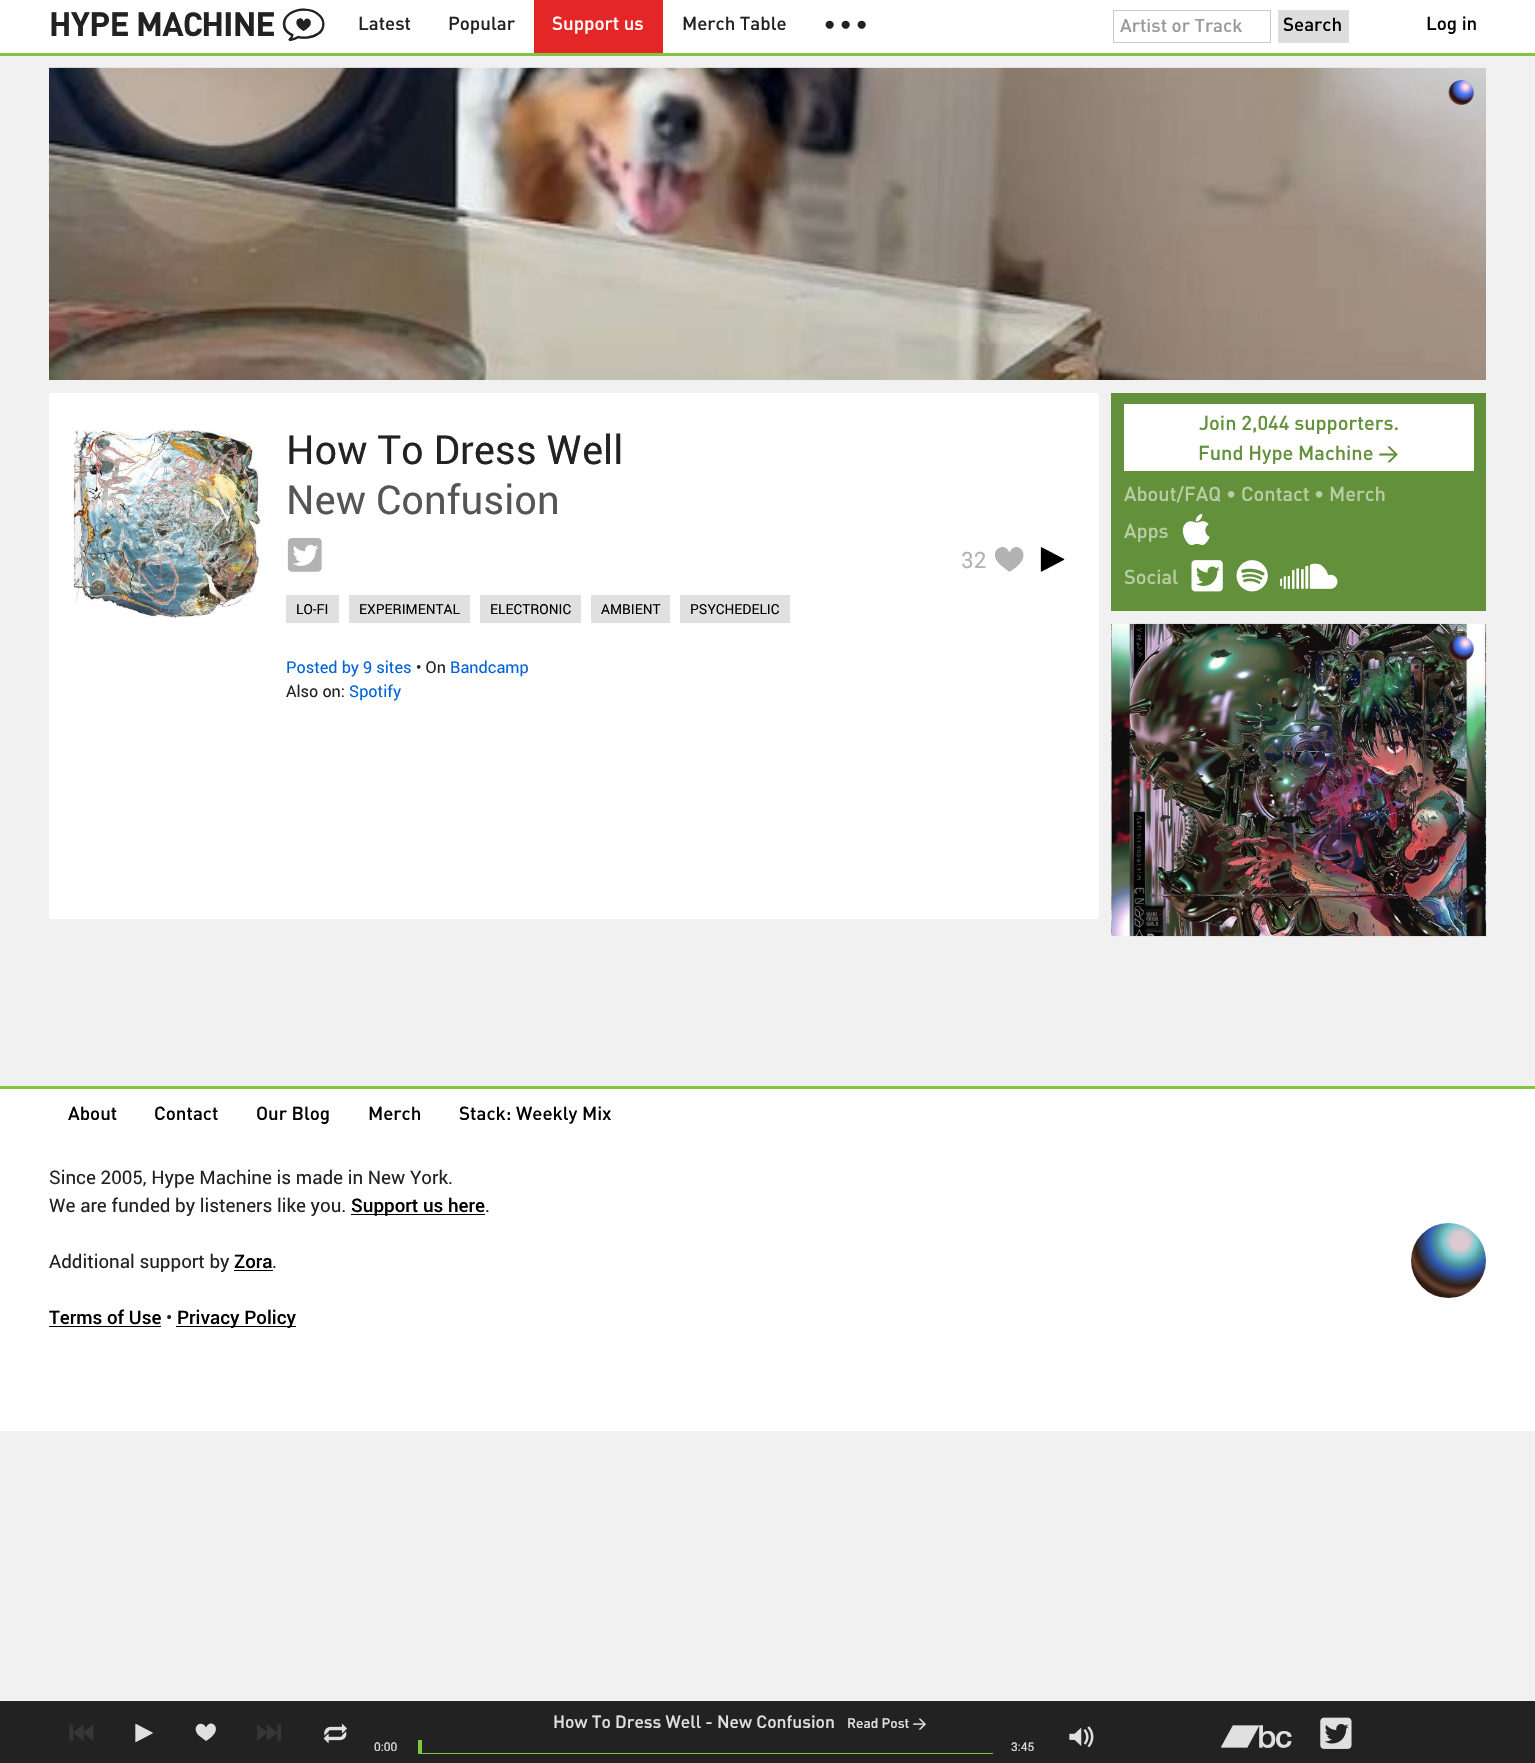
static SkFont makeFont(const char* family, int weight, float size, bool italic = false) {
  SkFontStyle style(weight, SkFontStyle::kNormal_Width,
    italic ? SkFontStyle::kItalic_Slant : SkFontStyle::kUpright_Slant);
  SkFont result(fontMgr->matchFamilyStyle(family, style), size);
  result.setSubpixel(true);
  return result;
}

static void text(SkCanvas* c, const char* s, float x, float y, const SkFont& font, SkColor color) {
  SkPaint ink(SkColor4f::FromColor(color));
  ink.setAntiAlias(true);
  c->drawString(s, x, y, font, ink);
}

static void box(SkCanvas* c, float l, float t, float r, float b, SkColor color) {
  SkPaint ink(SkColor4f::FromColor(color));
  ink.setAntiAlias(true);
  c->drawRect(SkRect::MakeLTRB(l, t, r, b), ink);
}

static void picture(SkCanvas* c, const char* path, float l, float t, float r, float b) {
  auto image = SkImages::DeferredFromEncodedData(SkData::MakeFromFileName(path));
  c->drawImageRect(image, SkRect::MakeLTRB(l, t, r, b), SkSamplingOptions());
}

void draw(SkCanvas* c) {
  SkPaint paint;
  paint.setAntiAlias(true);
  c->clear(0xfff1f1f1);
  box(c, 0, 0, 1535, 53, 0xffffffff);
  box(c, 0, 53, 1535, 56, 0xff83c441);
  SkFont face1 = makeFont("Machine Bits", 400, 47.5f);
  text(c, "1", 49, 35, face1, 0xff222222);
  SkFont face2 = makeFont("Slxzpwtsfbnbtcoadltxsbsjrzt", 500, 18.75f);
  text(c, "Latest", 358, 30, face2, 0xff222222);
  text(c, "Popular", 448, 30, face2, 0xff222222);
  box(c, 534, 0, 663, 53, 0xffe42626);
  text(c, "Support us", 552, 30, face2, 0xffffffff);
  text(c, "Merch Table", 682, 30, face2, 0xff222222);
  SkFont face3 = makeFont("Liberation Serif", 700, 18.75f);
  text(c, "● ● ●", 824, 30, face3, 0xff222222);
  paint.setStyle(SkPaint::kStroke_Style);
  paint.setStrokeWidth(1);
  paint.setColor(0xffcccccc);
  c->drawRect(SkRect::MakeLTRB(1113.5f, 10.5f, 1270.5f, 42.5f), paint);
  c->save();
  c->clipRect(SkRect::MakeLTRB(1120, 19, 1270, 38));
  text(c, "Artist or Track", 1120, 32, face2, 0xff999999);
  c->restore();
  box(c, 1278, 10, 1349, 43, 0xffdddddd);
  text(c, "Search", 1283, 31, face2, 0xff000000);
  text(c, "Log in", 1426, 30, face2, 0xff000000);
  picture(c, "img_01.png", 49, 67, 1486, 380);
  box(c, 49, 393, 1099, 919, 0xffffffff);
  picture(c, "img_02.png", 73, 430, 262, 618);
  SkFont face4 = makeFont("Roboto", 400, 40);
  text(c, "How To Dress Well", 286, 464, face4, 0xff222222);
  text(c, "New Confusion", 286, 514, face4, 0xff555555);
  picture(c, "img_03.png", 287, 538, 322, 572);
  SkFont face5 = makeFont("Roboto", 400, 22.5f);
  text(c, "32", 961, 568, face5, 0xffb3b3b3);
  paint.setStyle(SkPaint::kFill_Style);
  paint.setColor(0xffb3b3b3);
  c->drawPath(SkPathBuilder().moveTo(1009.5f, 552.5f).cubicTo(1015, 539, 1033.5f, 553, 1016.5f, 567).lineTo(1009.5f, 572).lineTo(1000.5f, 565).cubicTo(986, 552, 1004, 539.5f, 1009.5f, 552.5f).close().detach(), paint);
  picture(c, "img_04.png", 1040, 547, 1065, 572);
  box(c, 286, 595, 339, 623, 0xffe0e0e0);
  SkFont face6 = makeFont("Roboto", 400, 13.75f);
  text(c, "LO-FI", 296, 614, face6, 0xff000000);
  box(c, 349, 595, 470, 623, 0xffe0e0e0);
  text(c, "EXPERIMENTAL", 359, 614, face6, 0xff000000);
  box(c, 480, 595, 581, 623, 0xffe0e0e0);
  text(c, "ELECTRONIC", 490, 614, face6, 0xff000000);
  box(c, 591, 595, 670, 623, 0xffe0e0e0);
  text(c, "AMBIENT", 601, 614, face6, 0xff000000);
  box(c, 680, 595, 790, 623, 0xffe0e0e0);
  text(c, "PSYCHEDELIC", 690, 614, face6, 0xff000000);
  SkFont face7 = makeFont("Roboto", 400, 16.25f);
  text(c, "Posted by 9 sites", 286, 673, face7, 0xff0063dc);
  text(c, "• On", 416, 673, face7, 0xff222222);
  text(c, "Bandcamp", 450, 673, face7, 0xff0063dc);
  text(c, "Also on:", 286, 697, face7, 0xff222222);
  text(c, "Spotify", 349, 697, face7, 0xff0063dc);
  box(c, 1111, 393, 1486, 611, 0xff63903a);
  box(c, 1124, 404, 1474, 471, 0xffffffff);
  SkFont face8 = makeFont("Slxzpwtsfbnbtcoadltxsbsjrzt", 500, 20);
  text(c, "Join 2,044 supporters.", 1199, 430, face8, 0xff63903a);
  text(c, "Fund Hype Machine →", 1198, 460, face8, 0xff63903a);
  c->save();
  c->clipRect(SkRect::MakeLTRB(1124, 486, 1474, 506));
  text(c, "About/FAQ", 1124, 501, face8, 0xffb9cda5);
  c->restore();
  text(c, "•", 1226, 501, face8, 0xffb9cda5);
  text(c, "Contact", 1241, 501, face8, 0xffb9cda5);
  text(c, "•", 1314, 501, face8, 0xffb9cda5);
  text(c, "Merch", 1329, 501, face8, 0xffb9cda5);
  text(c, "Apps", 1124, 538, face8, 0xffb9cda5);
  picture(c, "img_05.png", 1182, 513, 1210, 546);
  text(c, "Social", 1124, 584, face8, 0xffb9cda5);
  picture(c, "img_06.png", 1191, 560, 1223, 592);
  picture(c, "img_07.png", 1236, 560, 1268, 592);
  SkFont face9 = makeFont("Machine Bits", 400, 25);
  text(c, "9", 1279, 586, face9, 0xffffffff);
  picture(c, "img_08.png", 1111, 623, 1487, 937);
  box(c, 0, 1089, 1535, 1431, 0xffffffff);
  box(c, 0, 1086, 1535, 1089, 0xff83c441);
  text(c, "About", 68, 1120, face2, 0xff000000);
  text(c, "Contact", 154, 1120, face2, 0xff000000);
  text(c, "Our Blog", 256, 1120, face2, 0xff000000);
  text(c, "Merch", 368, 1120, face2, 0xff000000);
  text(c, "Stack: Weekly Mix", 459, 1120, face2, 0xff000000);
  SkFont face10 = makeFont("Roboto", 400, 18.75f);
  text(c, "Since 2005, Hype Machine is made in New York.", 49, 1184, face10, 0xff222222);
  text(c, "We are funded by listeners like you.", 49, 1212, face10, 0xff222222);
  box(c, 351, 1214, 485, 1215, 0xff000000);
  SkFont face11 = makeFont("Roboto", 500, 18.75f);
  text(c, "Support us here", 351, 1212, face11, 0xff000000);
  text(c, ".", 485, 1212, face10, 0xff222222);
  text(c, "Additional support by", 49, 1268, face10, 0xff222222);
  text(c, "Zora", 234, 1268, face11, 0xff000000);
  box(c, 234, 1270, 273, 1271, 0xff000000);
  text(c, ".", 272, 1268, face10, 0xff222222);
  {
    const SkColor colors[] = {0xffdcc8d0, 0xff78c8cf, 0xff4d959e, 0xff305eb9, 0xff311f12, 0xff684232, 0xff2d1c13};
    const float stops[] = {0.16f, 0.3f, 0.43f, 0.56f, 0.8f, 0.91f, 1};
    paint.setShader(SkGradientShader::MakeRadial({1460, 1241}, 56, colors, stops, 7, SkTileMode::kClamp));
    paint.setAlpha(255);
  }
  c->drawCircle(1448.5f, 1260.5f, 37.5f, paint);
  text(c, "Terms of Use", 49, 1324, face11, 0xff000000);
  box(c, 49, 1326, 161, 1327, 0xff000000);
  text(c, "•", 166, 1324, face10, 0xff222222);
  box(c, 176, 1326, 296, 1327, 0xff000000);
  text(c, "Privacy Policy", 177, 1324, face11, 0xff000000);
  box(c, 0, 1701, 1535, 1763, 0xff222222);
  picture(c, "img_09.png", 69, 1724, 94, 1741);
  picture(c, "img_10.png", 135, 1723, 153, 1743);
  paint.setShader(nullptr);
  paint.setColor(0xffe0e0e0);
  c->drawPath(SkPathBuilder().moveTo(206, 1727.5f).cubicTo(210, 1718, 223, 1727.5f, 211, 1737.5f).lineTo(206, 1741).lineTo(199.5f, 1736).cubicTo(189.5f, 1727, 202, 1718.5f, 206, 1727.5f).close().detach(), paint);
  picture(c, "img_11.png", 257, 1724, 281, 1741);
  picture(c, "img_12.png", 323, 1723, 347, 1744);
  SkFont face12 = makeFont("Slxzpwtsfbnbtcoadltxsbsjrzt", 500, 17.5f);
  text(c, "How To Dress Well - New Confusion", 553, 1728, face12, 0xffe0e0e0);
  SkFont face13 = makeFont("Slxzpwtsfbnbtcoadltxsbsjrzt", 500, 13.75f);
  text(c, "Read Post →", 847, 1728, face13, 0xffe0e0e0);
  SkFont face14 = makeFont("Machine Bits", 400, 22.5f);
  text(c, "5", 1221, 1745, face14, 0xffe0e0e0);
  picture(c, "img_13.png", 1320, 1717, 1352, 1749);
  SkFont face15 = makeFont("Roboto", 400, 12);
  text(c, "0:00", 374, 1751, face15, 0xffe0e0e0);
  box(c, 418, 1753, 993, 1754, 0xff83c441);
  box(c, 418, 1740, 422, 1753, 0xff83c441);
  text(c, "3:45", 1011, 1751, face15, 0xffe0e0e0);
  picture(c, "img_14.png", 1069, 1726, 1094, 1748);
}
